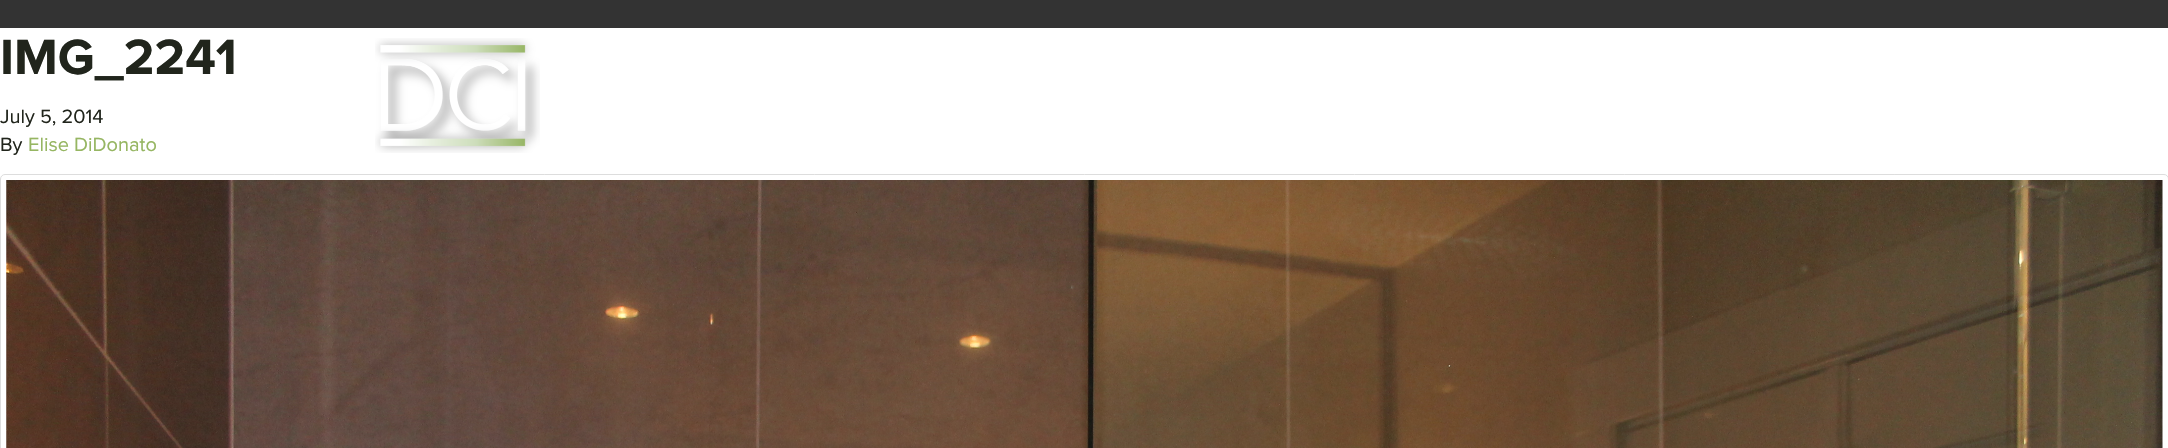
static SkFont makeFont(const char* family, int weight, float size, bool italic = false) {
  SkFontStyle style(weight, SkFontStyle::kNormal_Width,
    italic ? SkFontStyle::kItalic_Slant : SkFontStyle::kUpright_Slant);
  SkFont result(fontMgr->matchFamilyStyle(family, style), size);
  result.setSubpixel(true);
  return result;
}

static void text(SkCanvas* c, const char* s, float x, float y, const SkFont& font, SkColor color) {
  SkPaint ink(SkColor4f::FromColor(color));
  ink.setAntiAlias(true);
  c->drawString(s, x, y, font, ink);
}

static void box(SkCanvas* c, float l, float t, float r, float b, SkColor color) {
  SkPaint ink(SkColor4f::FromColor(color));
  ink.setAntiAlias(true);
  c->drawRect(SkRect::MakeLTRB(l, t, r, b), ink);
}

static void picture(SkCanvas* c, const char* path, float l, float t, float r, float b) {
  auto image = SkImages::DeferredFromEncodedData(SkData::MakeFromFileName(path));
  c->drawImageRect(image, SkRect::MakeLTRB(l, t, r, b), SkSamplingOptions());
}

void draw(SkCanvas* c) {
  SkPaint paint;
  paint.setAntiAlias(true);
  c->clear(0xff333333);
  box(c, 0, 28, 2168, 448, 0xffffffff);
  SkFont face1 = makeFont("Proxima Nova", 700, 51.25f);
  text(c, "IMG_2241", 0, 74, face1, 0xff21251c);
  SkFont face2 = makeFont("Proxima Nova", 400, 20);
  text(c, "July 5, 2014", 0, 123, face2, 0xff21251c);
  text(c, "By", 0, 151, face2, 0xff21251c);
  text(c, "Elise DiDonato", 28, 151, face2, 0xff96b662);
  paint.setStyle(SkPaint::kStroke_Style);
  paint.setStrokeWidth(1);
  paint.setColor(0xffdddddd);
  c->drawRoundRect(SkRect::MakeLTRB(0.5f, 174.5f, 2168.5f, 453.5f), 4.5f, 4.5f, paint);
  picture(c, "img_01.png", 6, 180, 2163, 448);
  picture(c, "img_02.png", 375, 38, 540, 153);
}
